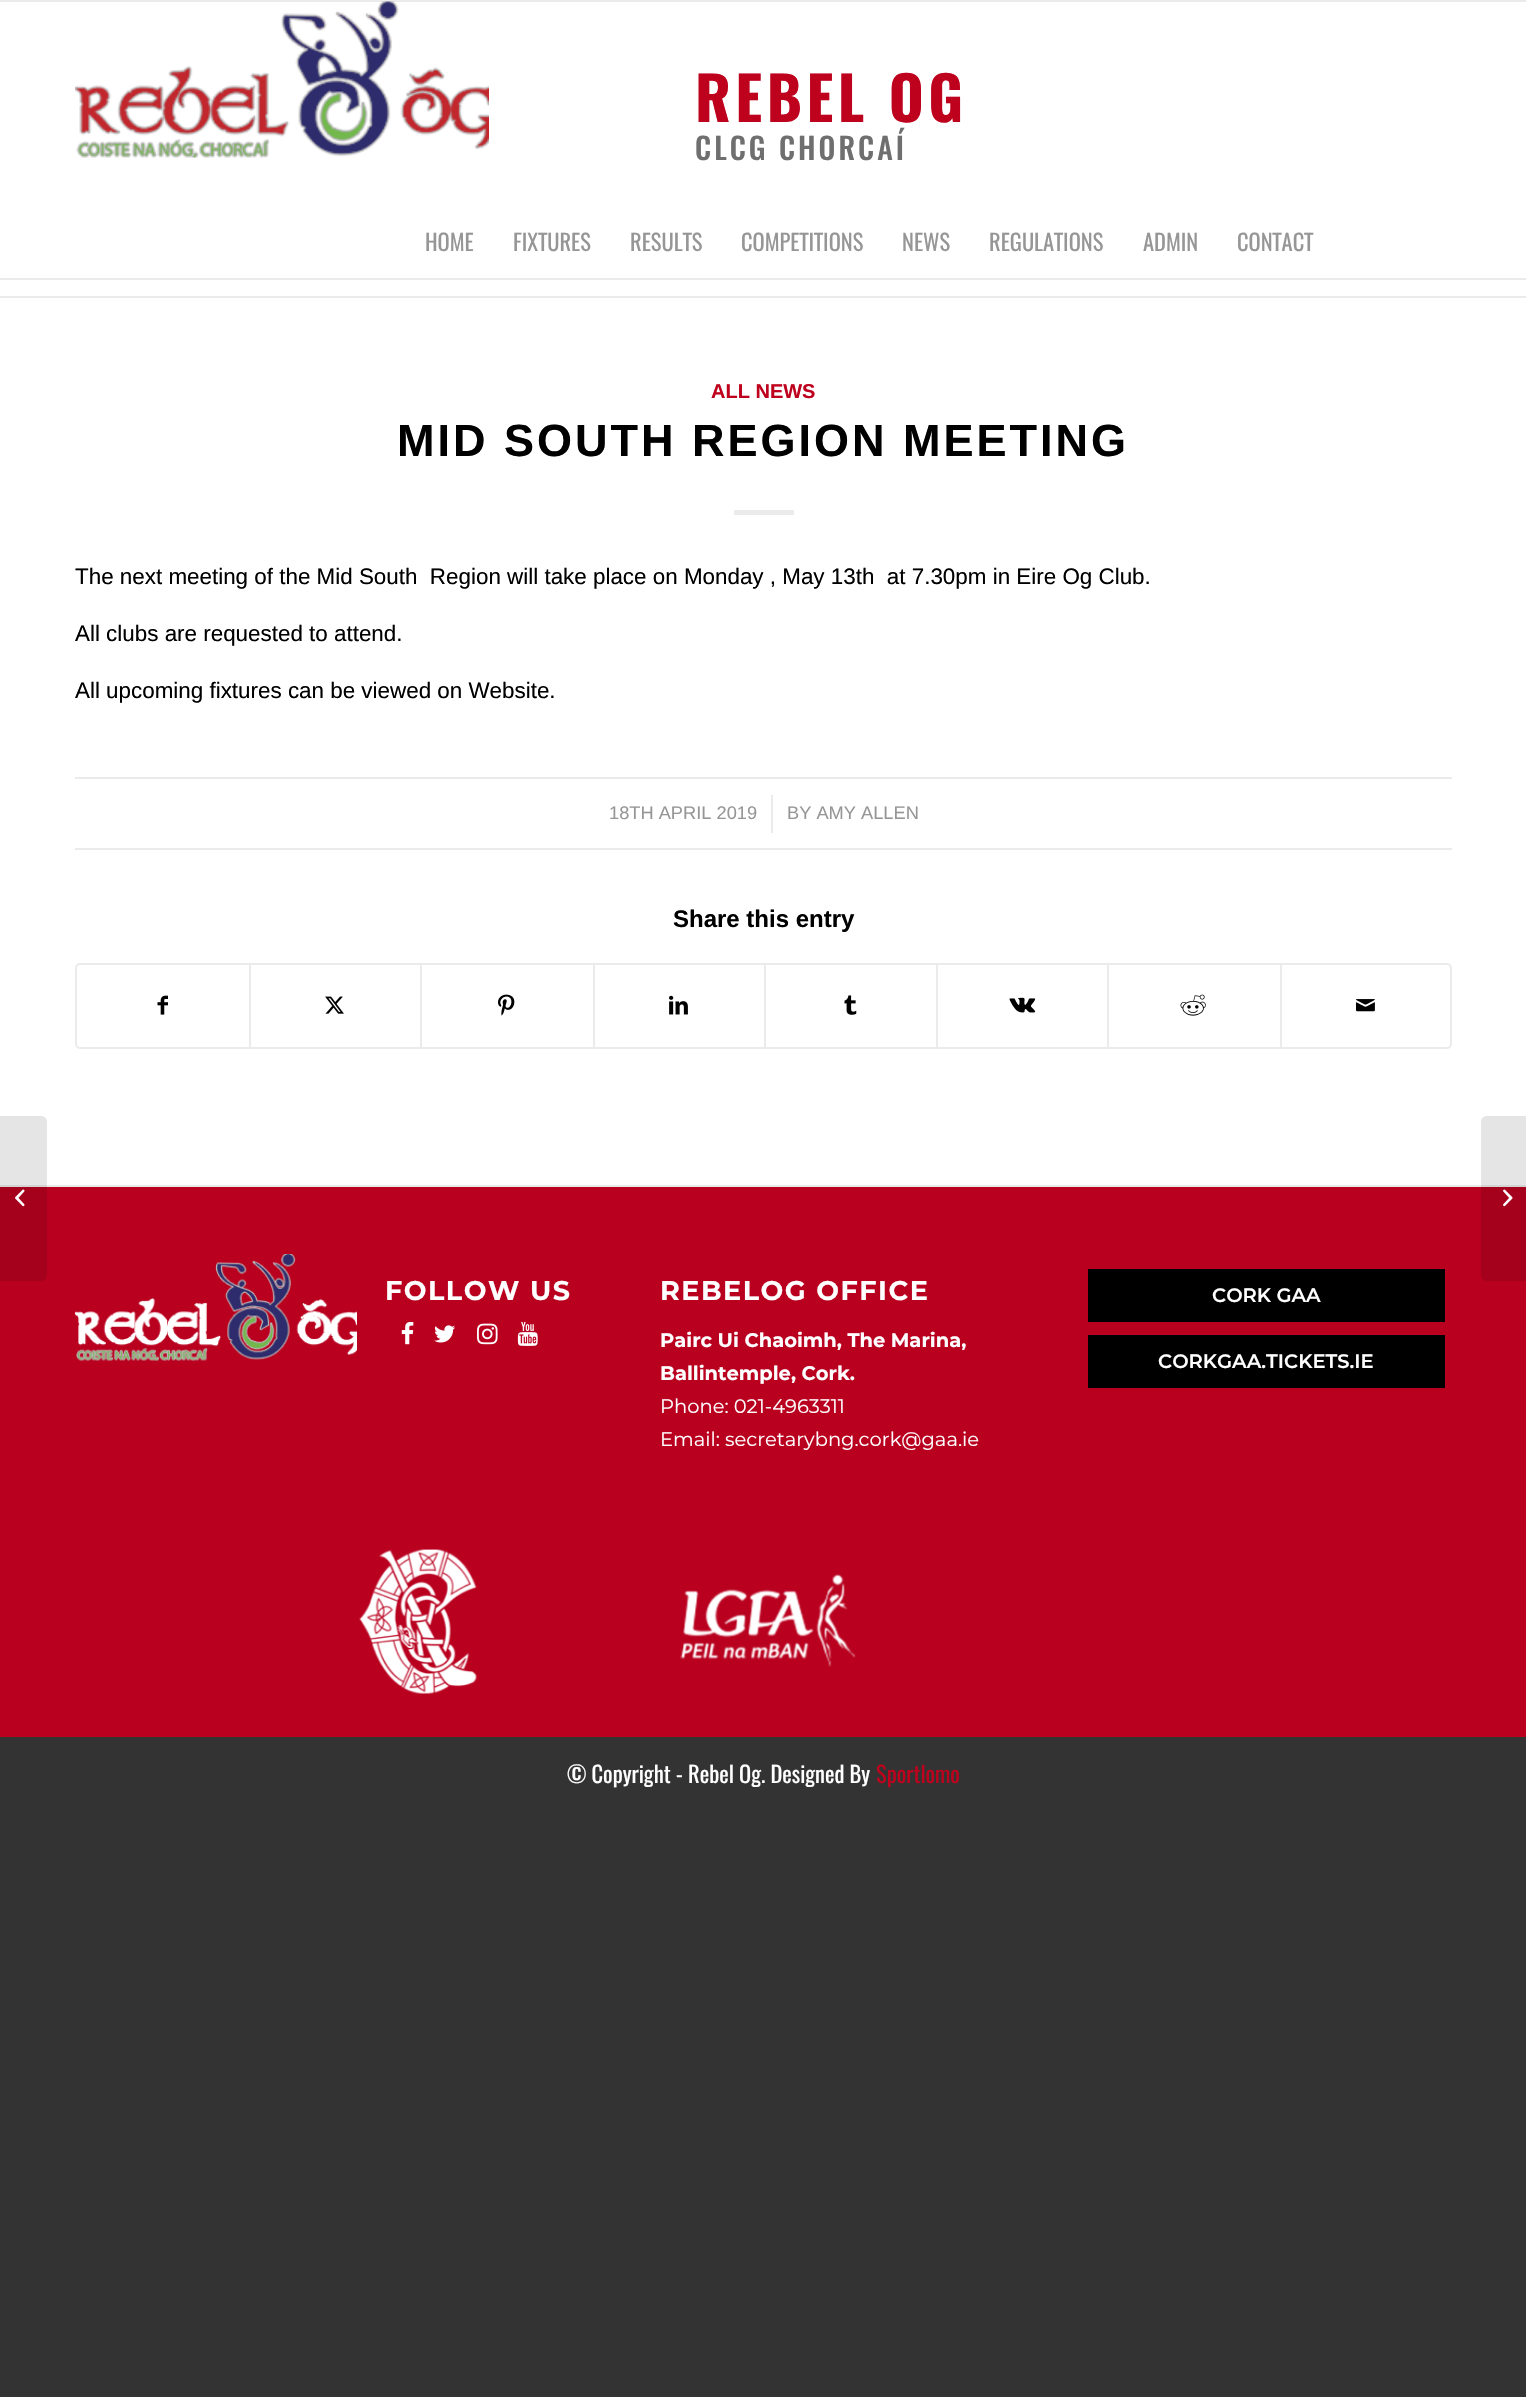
static SkFont makeFont(const char* family, int weight, float size, bool italic = false) {
  SkFontStyle style(weight, SkFontStyle::kNormal_Width,
    italic ? SkFontStyle::kItalic_Slant : SkFontStyle::kUpright_Slant);
  SkFont result(fontMgr->matchFamilyStyle(family, style), size);
  result.setSubpixel(true);
  return result;
}

static void text(SkCanvas* c, const char* s, float x, float y, const SkFont& font, SkColor color) {
  SkPaint ink(SkColor4f::FromColor(color));
  ink.setAntiAlias(true);
  c->drawString(s, x, y, font, ink);
}

static void spacedText(SkCanvas* c, const char* s, float x, float y, const SkFont& font, const SkPaint& ink, float letter, float word) {
  std::vector<SkGlyphID> glyphs(font.countText(s, strlen(s), SkTextEncoding::kUTF8));
  std::vector<float> xs(glyphs.size());
  font.textToGlyphs(s, strlen(s), SkTextEncoding::kUTF8, glyphs);
  font.getXPos(glyphs, xs, x);
  float extra = 0;
  for (size_t i = 0; i < glyphs.size(); i++) {
    xs[i] += extra;
    extra += letter + word * (glyphs[i] == font.unicharToGlyph(' '));
  }
  c->drawTextBlob(SkTextBlob::MakeFromPosHGlyphs(glyphs, xs, y, font), 0, 0, ink);
}

static void box(SkCanvas* c, float l, float t, float r, float b, SkColor color) {
  SkPaint ink(SkColor4f::FromColor(color));
  ink.setAntiAlias(true);
  c->drawRect(SkRect::MakeLTRB(l, t, r, b), ink);
}

static void picture(SkCanvas* c, const char* path, float l, float t, float r, float b) {
  auto image = SkImages::DeferredFromEncodedData(SkData::MakeFromFileName(path));
  c->drawImageRect(image, SkRect::MakeLTRB(l, t, r, b), SkSamplingOptions());
}

void draw(SkCanvas* c) {
  SkPaint paint;
  paint.setAntiAlias(true);
  c->clear(0xff333333);
  box(c, 0, 280, 1526, 1185, 0xffffffff);
  box(c, 0, 1187, 1526, 1737, 0xffb9011f);
  box(c, 0, 1185, 1526, 1187, 0xffebebeb);
  paint.setColor(0x1a000000);
  c->drawPath(SkPathBuilder().moveTo(0, 1116).lineTo(41, 1116).cubicTo(44.5f, 1116, 47, 1118.5f, 47, 1122).lineTo(47, 1275).cubicTo(47, 1278.5f, 44.5f, 1281, 41, 1281).lineTo(0, 1281).close().detach(), paint);
  picture(c, "img_01.png", 15, 1189, 25, 1207);
  box(c, 0, 2, 1526, 278, 0xffffffff);
  box(c, 0, 0, 1526, 2, 0xffebebeb);
  box(c, 0, 278, 1526, 280, 0xffebebeb);
  picture(c, "img_02.png", 75, 1, 489, 158);
  SkFont face1 = makeFont("Oswald", 700, 60);
  paint.setColor(0xffbe011d);
  spacedText(c, "REBEL OG", 695, 122, face1, paint, 4.5f, 0);
  SkFont face2 = makeFont("Oswald", 500, 30);
  paint.setColor(0xff6f6f6f);
  spacedText(c, "CLCG CHORCAÍ", 695, 160, face2, paint, 3, 0);
  SkFont face3 = makeFont("Oswald", 400, 22.5f);
  text(c, "HOME", 425, 251, face3, 0xff969696);
  text(c, "FIXTURES", 513, 251, face3, 0xff969696);
  text(c, "RESULTS", 630, 251, face3, 0xff969696);
  text(c, "COMPETITIONS", 741, 251, face3, 0xff969696);
  text(c, "NEWS", 902, 251, face3, 0xff969696);
  text(c, "REGULATIONS", 989, 251, face3, 0xff969696);
  text(c, "ADMIN", 1143, 251, face3, 0xff969696);
  text(c, "CONTACT", 1237, 251, face3, 0xff969696);
  box(c, 0, 296, 1526, 298, 0xffebebeb);
  SkFont face4 = makeFont("Liberation Sans", 700, 20);
  text(c, "ALL NEWS", 711, 398, face4, 0xffbe011d);
  SkFont face5 = makeFont("Liberation Sans", 700, 45);
  paint.setColor(0xff000000);
  spacedText(c, "MID SOUTH REGION MEETING", 397, 456, face5, paint, 3, 0);
  box(c, 734, 510, 794, 515, 0xffebebeb);
  SkFont face6 = makeFont("Liberation Sans", 400, 22.4f);
  text(c, "The next meeting of the Mid South  Region will take place on Monday , May 13th  at 7.30pm in Eire Og Club.", 75, 584, face6, 0xff000000);
  text(c, "All clubs are requested to attend.", 75, 641, face6, 0xff000000);
  text(c, "All upcoming fixtures can be viewed on Website.", 75, 698, face6, 0xff000000);
  box(c, 75, 777, 1452, 779, 0xffebebeb);
  box(c, 75, 848, 1452, 850, 0xffebebeb);
  SkFont face7 = makeFont("Liberation Sans", 400, 18.25f);
  text(c, "18TH APRIL 2019", 609, 819, face7, 0xff969696);
  box(c, 771, 795, 773, 833, 0xffebebeb);
  text(c, "BY AMY ALLEN", 787, 819, face7, 0xff969696);
  SkFont face8 = makeFont("Liberation Sans", 700, 24);
  text(c, "Share this entry", 673, 927, face8, 0xff000000);
  paint.setStyle(SkPaint::kStroke_Style);
  paint.setStrokeWidth(2);
  paint.setColor(0xffebebeb);
  c->drawRoundRect(SkRect::MakeLTRB(76, 964, 1451, 1048), 4, 4, paint);
  picture(c, "img_03.png", 157, 995, 168, 1015);
  box(c, 249, 965, 251, 1047, 0xffebebeb);
  picture(c, "img_04.png", 325, 996, 344, 1014);
  box(c, 420, 965, 422, 1047, 0xffebebeb);
  picture(c, "img_05.png", 498, 994, 515, 1016);
  box(c, 593, 965, 595, 1047, 0xffebebeb);
  picture(c, "img_06.png", 669, 995, 688, 1015);
  box(c, 764, 965, 766, 1047, 0xffebebeb);
  picture(c, "img_07.png", 844, 995, 857, 1015);
  box(c, 936, 965, 938, 1047, 0xffebebeb);
  picture(c, "img_08.png", 1009, 997, 1036, 1013);
  box(c, 1107, 965, 1109, 1047, 0xffebebeb);
  picture(c, "img_09.png", 1180, 994, 1206, 1016);
  box(c, 1280, 965, 1282, 1047, 0xffebebeb);
  picture(c, "img_10.png", 1356, 999, 1375, 1012);
  picture(c, "img_11.png", 75, 1254, 357, 1361);
  SkFont face9 = makeFont("Montserrat", 700, 27);
  paint.setStyle(SkPaint::kFill_Style);
  paint.setColor(0xffffffff);
  spacedText(c, "FOLLOW US", 385, 1300, face9, paint, 1.5f, 0);
  picture(c, "img_12.png", 401, 1321, 414, 1345);
  picture(c, "img_13.png", 434, 1325, 455, 1343);
  picture(c, "img_14.png", 477, 1323, 498, 1345);
  picture(c, "img_15.png", 517, 1321, 538, 1346);
  spacedText(c, "REBELOG OFFICE", 660, 1300, face9, paint, 1.5f, 0);
  SkFont face10 = makeFont("Montserrat", 700, 19.5f);
  text(c, "Pairc Ui Chaoimh, The Marina,", 660, 1347, face10, 0xffffffff);
  text(c, "Ballintemple, Cork.", 660, 1380, face10, 0xffffffff);
  SkFont face11 = makeFont("Montserrat", 400, 19.5f);
  text(c, "Phone: 021-4963311", 660, 1413, face11, 0xffffffff);
  text(c, "Email: secretarybng.cork@gaa.ie", 660, 1446, face11, 0xffffffff);
  box(c, 1088, 1269, 1445, 1322, 0xff000000);
  SkFont face12 = makeFont("Montserrat", 600, 19.5f);
  text(c, "CORK GAA", 1212, 1302, face12, 0xffffffff);
  box(c, 1088, 1335, 1445, 1388, 0xff000000);
  text(c, "CORKGAA.TICKETS.IE", 1158, 1368, face12, 0xffffffff);
  picture(c, "img_16.png", 359, 1549, 477, 1694);
  picture(c, "img_17.png", 680, 1574, 856, 1667);
  text(c, "© Copyright - Rebel Og. Designed By", 567, 1783, face3, 0xffffffff);
  text(c, "Sportlomo", 876, 1783, face3, 0xffbe011d);
  paint.setColor(0x1a000000);
  c->drawPath(SkPathBuilder().moveTo(1487, 1116).lineTo(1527, 1116).lineTo(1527, 1281).lineTo(1487, 1281).cubicTo(1483.5f, 1281, 1481, 1278.5f, 1481, 1275).lineTo(1481, 1122).cubicTo(1481, 1118.5f, 1483.5f, 1116, 1487, 1116).close().detach(), paint);
  picture(c, "img_18.png", 1503, 1189, 1513, 1207);
}
